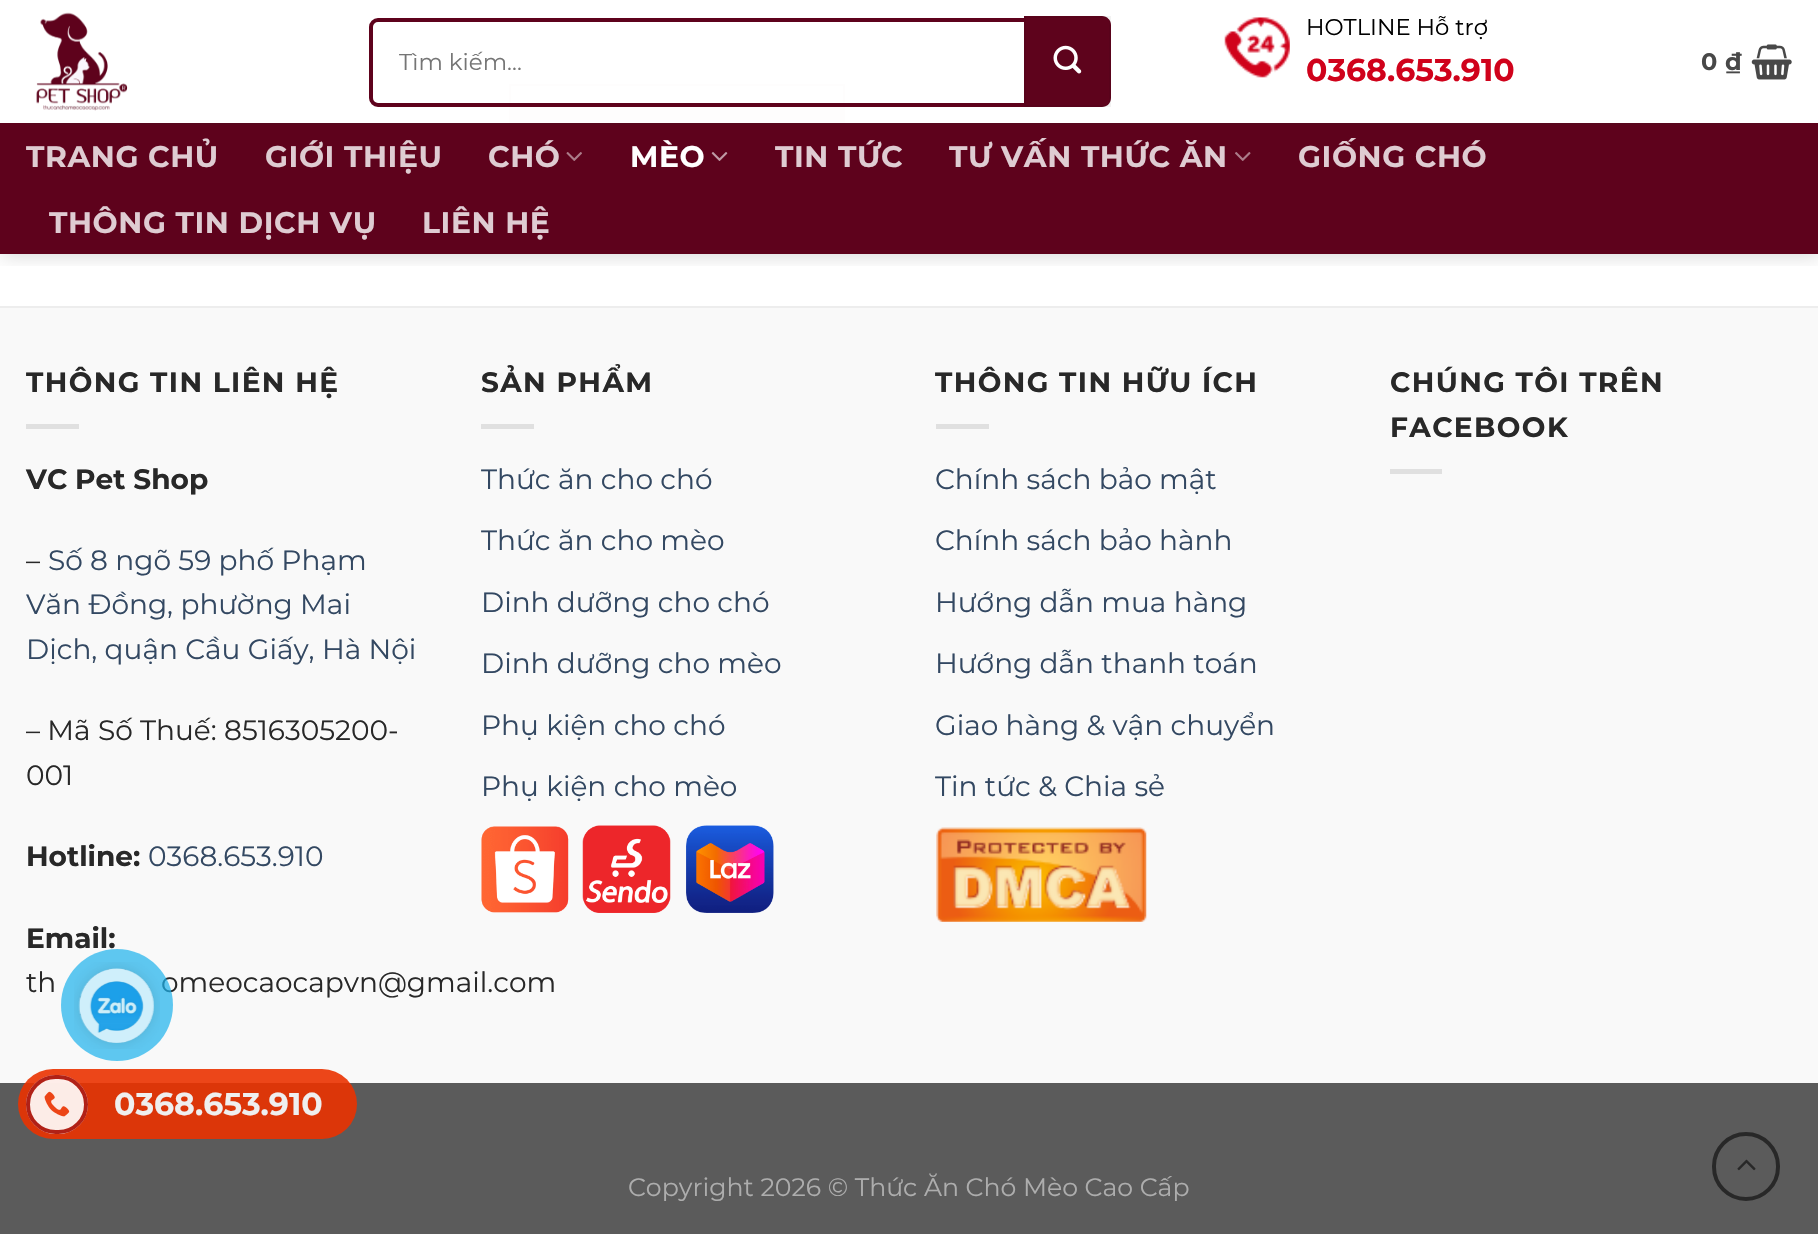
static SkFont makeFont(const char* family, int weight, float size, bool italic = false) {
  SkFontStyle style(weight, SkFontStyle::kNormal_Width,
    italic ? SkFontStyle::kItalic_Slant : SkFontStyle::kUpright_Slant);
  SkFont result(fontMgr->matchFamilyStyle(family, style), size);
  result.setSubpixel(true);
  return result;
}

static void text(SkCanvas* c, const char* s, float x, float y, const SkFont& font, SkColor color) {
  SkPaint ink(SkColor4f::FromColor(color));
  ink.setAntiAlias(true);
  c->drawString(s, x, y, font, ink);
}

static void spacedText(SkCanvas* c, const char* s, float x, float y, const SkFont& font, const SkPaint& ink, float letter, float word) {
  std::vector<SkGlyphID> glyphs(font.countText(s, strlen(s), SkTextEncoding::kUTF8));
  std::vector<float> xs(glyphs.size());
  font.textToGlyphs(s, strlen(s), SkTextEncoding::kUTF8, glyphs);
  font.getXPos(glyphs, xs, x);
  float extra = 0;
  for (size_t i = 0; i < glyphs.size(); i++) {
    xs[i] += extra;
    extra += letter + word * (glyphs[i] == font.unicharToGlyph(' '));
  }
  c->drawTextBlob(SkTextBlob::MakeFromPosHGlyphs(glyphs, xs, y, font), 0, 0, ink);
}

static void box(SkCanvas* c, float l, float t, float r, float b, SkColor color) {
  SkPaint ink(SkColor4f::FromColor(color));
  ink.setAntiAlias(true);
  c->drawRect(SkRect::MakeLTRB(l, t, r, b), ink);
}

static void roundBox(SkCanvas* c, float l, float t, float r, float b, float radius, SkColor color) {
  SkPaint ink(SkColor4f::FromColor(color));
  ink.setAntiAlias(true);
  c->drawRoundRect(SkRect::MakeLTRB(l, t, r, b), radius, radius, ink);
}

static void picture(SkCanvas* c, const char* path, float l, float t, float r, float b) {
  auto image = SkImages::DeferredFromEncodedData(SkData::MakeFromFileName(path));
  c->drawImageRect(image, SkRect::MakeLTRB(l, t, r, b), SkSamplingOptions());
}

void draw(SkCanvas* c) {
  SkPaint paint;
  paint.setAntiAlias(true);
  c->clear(0xffffffff);
  box(c, 483, 0, 1790, 123, 0xffefefef);
  paint.setStyle(SkPaint::kStroke_Style);
  paint.setStrokeWidth(2);
  paint.setColor(0xffdcdcdc);
  c->drawRect(SkRect::MakeLTRB(482, -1, 1791, 216), paint);
  box(c, 511, 0, 1108, 19, 0xffffffff);
  paint.setColor(0xffdddddd);
  c->drawRect(SkRect::MakeLTRB(510, -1, 1109, 53), paint);
  paint.setStyle(SkPaint::kFill_Style);
  paint.setColor(0xffffffff);
  c->drawRect(SkRect::MakeLTRB(1163, -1, 1763, 31), paint);
  paint.setStyle(SkPaint::kStroke_Style);
  paint.setColor(0xffdddddd);
  c->drawRect(SkRect::MakeLTRB(1163, -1, 1763, 31), paint);
  box(c, 511, 107, 843, 123, 0xff5e031c);
  paint.setColor(0xff59031b);
  c->drawRect(SkRect::MakeLTRB(510, 85, 844, 153), paint);
  c->save();
  c->clipRect(SkRect::MakeLTRB(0, 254, 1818, 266));
  paint.setStyle(SkPaint::kFill_Style);
  paint.setColor(0x26000000);
  paint.setMaskFilter(SkMaskFilter::MakeBlur(kNormal_SkBlurStyle, 9));
  c->drawRect(SkRect::MakeLTRB(2, 2, 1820, 256), paint);
  paint.setMaskFilter(nullptr);
  c->restore();
  box(c, 481, 0, 1792, 123, 0xe6ffffff);
  box(c, 481, 0, 1792, 123, 0xe6ffffff);
  picture(c, "img_01.png", 36, 12, 128, 111);
  paint.setStyle(SkPaint::kStroke_Style);
  paint.setStrokeWidth(4);
  paint.setColor(0xff5e021c);
  c->drawRoundRect(SkRect::MakeLTRB(371, 20, 1031, 105), 7, 7, paint);
  SkFont face1 = makeFont("Montserrat", 400, 23);
  text(c, "Tìm kiếm…", 399, 70, face1, 0xff757575);
  paint.setStyle(SkPaint::kFill_Style);
  paint.setColor(0xff5e031c);
  c->drawPath(SkPathBuilder().moveTo(1024, 16).lineTo(1102, 16).cubicTo(1107, 16, 1111, 20, 1111, 25).lineTo(1111, 98).cubicTo(1111, 103, 1107, 107, 1102, 107).lineTo(1024, 107).close().detach(), paint);
  paint.setStyle(SkPaint::kStroke_Style);
  paint.setStrokeWidth(2);
  paint.setColor(0x0d000000);
  c->drawRect(SkRect::MakeLTRB(1025, 17, 1110, 106), paint);
  picture(c, "img_02.png", 1053, 45, 1082, 74);
  picture(c, "img_03.png", 1224, 17, 1290, 78);
  SkFont face2 = makeFont("Montserrat", 400, 22.75f);
  text(c, "HOTLINE Hỗ trợ", 1306, 35, face2, 0xff000000);
  SkFont face3 = makeFont("Montserrat", 700, 31.5f);
  text(c, "0368.653.910", 1306, 81, face3, 0xffd0021b);
  SkFont face4 = makeFont("Montserrat", 700, 24);
  paint.setStyle(SkPaint::kFill_Style);
  paint.setColor(0xff484848);
  spacedText(c, "0 ₫", 1701, 70, face4, paint, 0.5f, 0);
  picture(c, "img_04.png", 1751, 44, 1792, 80);
  box(c, 0, 123, 1818, 254, 0xff5e021c);
  box(c, 26, 123, 1792, 125, 0xff59061d);
  SkFont face5 = makeFont("Montserrat", 700, 29.75f);
  paint.setColor(0xffdfccd2);
  spacedText(c, "TRANG CHỦ", 26, 167, face5, paint, 0.6f, 0);
  spacedText(c, "GIỚI THIỆU", 265, 167, face5, paint, 0.6f, 0);
  spacedText(c, "CHÓ", 488, 167, face5, paint, 0.6f, 0);
  picture(c, "img_05.png", 566, 152, 582, 161);
  paint.setColor(0xffffffff);
  spacedText(c, "MÈO", 630, 167, face5, paint, 0.6f, 0);
  picture(c, "img_06.png", 711, 152, 728, 161);
  paint.setColor(0xffdfccd2);
  spacedText(c, "TIN TỨC", 775, 167, face5, paint, 0.6f, 0);
  spacedText(c, "TƯ VẤN THỨC ĂN", 949, 167, face5, paint, 0.6f, 0);
  picture(c, "img_07.png", 1235, 152, 1251, 161);
  spacedText(c, "GIỐNG CHÓ", 1298, 167, face5, paint, 0.6f, 0);
  spacedText(c, "THÔNG TIN DỊCH VỤ", 49, 233, face5, paint, 0.6f, 0);
  spacedText(c, "LIÊN HỆ", 422, 233, face5, paint, 0.6f, 0);
  box(c, 0, 308, 1818, 1083, 0xfff9f9f9);
  box(c, 0, 306, 1818, 308, 0xffededed);
  SkFont face6 = makeFont("Montserrat", 700, 28);
  paint.setColor(0xff282828);
  spacedText(c, "THÔNG TIN LIÊN HỆ", 26, 392, face6, paint, 1.4f, 0);
  box(c, 26, 424, 79, 429, 0xffe0e0e0);
  text(c, "VC Pet Shop", 26, 489, face6, 0xff282828);
  SkFont face7 = makeFont("Montserrat", 400, 28);
  text(c, "–", 26, 570, face7, 0xff282828);
  text(c, "Số 8 ngõ 59 phố Phạm", 48, 570, face7, 0xff334862);
  text(c, "Văn Đồng, phường Mai", 26, 614, face7, 0xff334862);
  text(c, "Dịch, quận Cầu Giấy, Hà Nội", 26, 659, face7, 0xff334862);
  text(c, "– Mã Số Thuế: 8516305200-", 26, 740, face7, 0xff282828);
  text(c, "001", 26, 785, face7, 0xff282828);
  text(c, "Hotline:", 26, 866, face6, 0xff282828);
  text(c, "0368.653.910", 148, 866, face7, 0xff334862);
  text(c, "Email:", 26, 948, face6, 0xff282828);
  text(c, "th", 26, 992, face7, 0xff282828);
  text(c, "omeocaocapvn@gmail.com", 161, 992, face7, 0xff282828);
  spacedText(c, "SẢN PHẨM", 481, 392, face6, paint, 1.4f, 0);
  box(c, 481, 424, 534, 429, 0xffe0e0e0);
  text(c, "Thức ăn cho chó", 481, 489, face7, 0xff334862);
  text(c, "Thức ăn cho mèo", 481, 550, face7, 0xff334862);
  text(c, "Dinh dưỡng cho chó", 481, 612, face7, 0xff334862);
  text(c, "Dinh dưỡng cho mèo", 481, 673, face7, 0xff334862);
  text(c, "Phụ kiện cho chó", 481, 735, face7, 0xff334862);
  text(c, "Phụ kiện cho mèo", 481, 796, face7, 0xff334862);
  picture(c, "img_08.png", 481, 826, 569, 913);
  picture(c, "img_09.png", 582, 825, 671, 913);
  picture(c, "img_10.png", 686, 825, 774, 913);
  spacedText(c, "THÔNG TIN HỮU ÍCH", 935, 392, face6, paint, 1.4f, 0);
  box(c, 936, 424, 989, 429, 0xffe0e0e0);
  text(c, "Chính sách bảo mật", 935, 489, face7, 0xff334862);
  text(c, "Chính sách bảo hành", 935, 550, face7, 0xff334862);
  text(c, "Hướng dẫn mua hàng", 935, 612, face7, 0xff334862);
  text(c, "Hướng dẫn thanh toán", 935, 673, face7, 0xff334862);
  text(c, "Giao hàng & vận chuyển", 935, 735, face7, 0xff334862);
  text(c, "Tin tức & Chia sẻ", 935, 796, face7, 0xff334862);
  picture(c, "img_11.png", 936, 827, 1147, 922);
  spacedText(c, "CHÚNG TÔI TRÊN", 1390, 392, face6, paint, 1.4f, 0);
  spacedText(c, "FACEBOOK", 1390, 437, face6, paint, 1.4f, 0);
  box(c, 1390, 469, 1442, 474, 0xffe0e0e0);
  paint.setColor(0xb31cb2ed);
  c->drawCircle(117, 1005, 56, paint);
  picture(c, "img_12.png", 74, 962, 160, 1049);
  box(c, 0, 1083, 1818, 1234, 0xff5b5b5b);
  roundBox(c, 18, 1069, 357, 1139, 35, 0xe6ea3200);
  roundBox(c, 26, 1075, 88, 1134, 29.5f, 0xe6ffffff);
  paint.setStyle(SkPaint::kStroke_Style);
  paint.setStrokeWidth(4);
  paint.setColor(0xe6a90a00);
  c->drawRoundRect(SkRect::MakeLTRB(28, 1077, 86, 1132), 27.5f, 27.5f, paint);
  picture(c, "img_13.png", 44, 1091, 70, 1117);
  text(c, "0368.653.910", 114, 1115, face3, 0xffefefef);
  SkFont face8 = makeFont("Montserrat", 400, 25.2f);
  text(c, "Copyright 2026 © Thức Ăn Chó Mèo Cao Cấp", 628, 1196, face8, 0xffadadad);
  paint.setColor(0xff282828);
  c->drawRoundRect(SkRect::MakeLTRB(1714, 1134, 1778, 1199), 32, 32, paint);
  picture(c, "img_14.png", 1737, 1159, 1756, 1171);
}
